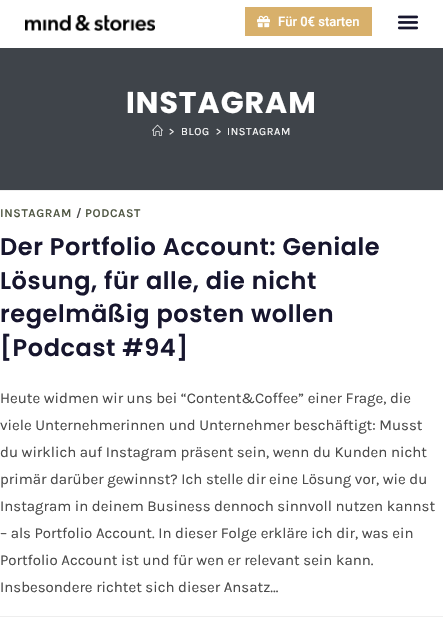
static SkFont makeFont(const char* family, int weight, float size, bool italic = false) {
  SkFontStyle style(weight, SkFontStyle::kNormal_Width,
    italic ? SkFontStyle::kItalic_Slant : SkFontStyle::kUpright_Slant);
  SkFont result(fontMgr->matchFamilyStyle(family, style), size);
  result.setSubpixel(true);
  return result;
}

static void text(SkCanvas* c, const char* s, float x, float y, const SkFont& font, SkColor color) {
  SkPaint ink(SkColor4f::FromColor(color));
  ink.setAntiAlias(true);
  c->drawString(s, x, y, font, ink);
}

static void spacedText(SkCanvas* c, const char* s, float x, float y, const SkFont& font, const SkPaint& ink, float letter, float word) {
  std::vector<SkGlyphID> glyphs(font.countText(s, strlen(s), SkTextEncoding::kUTF8));
  std::vector<float> xs(glyphs.size());
  font.textToGlyphs(s, strlen(s), SkTextEncoding::kUTF8, glyphs);
  font.getXPos(glyphs, xs, x);
  float extra = 0;
  for (size_t i = 0; i < glyphs.size(); i++) {
    xs[i] += extra;
    extra += letter + word * (glyphs[i] == font.unicharToGlyph(' '));
  }
  c->drawTextBlob(SkTextBlob::MakeFromPosHGlyphs(glyphs, xs, y, font), 0, 0, ink);
}

static void box(SkCanvas* c, float l, float t, float r, float b, SkColor color) {
  SkPaint ink(SkColor4f::FromColor(color));
  ink.setAntiAlias(true);
  c->drawRect(SkRect::MakeLTRB(l, t, r, b), ink);
}

static void picture(SkCanvas* c, const char* path, float l, float t, float r, float b) {
  auto image = SkImages::DeferredFromEncodedData(SkData::MakeFromFileName(path));
  c->drawImageRect(image, SkRect::MakeLTRB(l, t, r, b), SkSamplingOptions());
}

void draw(SkCanvas* c) {
  SkPaint paint;
  paint.setAntiAlias(true);
  c->clear(0xffffffff);
  picture(c, "img_01.png", 25, 15, 155, 31);
  box(c, 245, 7, 372, 36, 0xffd8b06b);
  picture(c, "img_02.png", 257, 15, 270, 28);
  SkFont face1 = makeFont("Roboto", 500, 13);
  text(c, "Für 0€ starten", 278, 26, face1, 0xffffffff);
  picture(c, "img_03.png", 397, 15, 419, 30);
  box(c, 0, 48, 443, 190, 0xff3f444a);
  box(c, 0, 190, 443, 191, 0xffeeeeee);
  SkFont face2 = makeFont("Poppins", 700, 30);
  paint.setColor(0xffffffff);
  spacedText(c, "INSTAGRAM", 126, 113, face2, paint, 1, 0);
  picture(c, "img_04.png", 152, 124, 163, 136);
  SkFont face3 = makeFont("Karla", 400, 11);
  spacedText(c, ">", 169, 135, face3, paint, 0.6f, 0);
  spacedText(c, "BLOG", 181, 135, face3, paint, 0.6f, 0);
  spacedText(c, ">", 216, 135, face3, paint, 0.6f, 0);
  spacedText(c, "INSTAGRAM", 227, 135, face3, paint, 0.6f, 0);
  SkFont face4 = makeFont("Karla", 600, 12);
  paint.setColor(0xff515844);
  spacedText(c, "INSTAGRAM", 0, 217, face4, paint, 0.6f, 0);
  paint.setColor(0xff4a4a4a);
  spacedText(c, "/", 76, 217, face4, paint, 0.6f, 0);
  paint.setColor(0xff515844);
  spacedText(c, "PODCAST", 85, 217, face4, paint, 0.6f, 0);
  SkFont face5 = makeFont("Poppins", 600, 24);
  paint.setColor(0xff17162e);
  spacedText(c, "Der Portfolio Account: Geniale", 0, 255, face5, paint, 0.6f, 0);
  spacedText(c, "Lösung, für alle, die nicht", 0, 289, face5, paint, 0.6f, 0);
  spacedText(c, "regelmäßig posten wollen", 0, 322, face5, paint, 0.6f, 0);
  spacedText(c, "[Podcast #94]", 0, 356, face5, paint, 0.6f, 0);
  SkFont face6 = makeFont("Karla", 400, 15);
  text(c, "Heute widmen wir uns bei “Content&Coffee” einer Frage, die", 0, 403, face6, 0xff4a4a4a);
  text(c, "viele Unternehmerinnen und Unternehmer beschäftigt: Musst", 0, 430, face6, 0xff4a4a4a);
  text(c, "du wirklich auf Instagram präsent sein, wenn du Kunden nicht", 0, 457, face6, 0xff4a4a4a);
  text(c, "primär darüber gewinnst? Ich stelle dir eine Lösung vor, wie du", 0, 484, face6, 0xff4a4a4a);
  text(c, "Instagram in deinem Business dennoch sinnvoll nutzen kannst", 0, 511, face6, 0xff4a4a4a);
  text(c, "– als Portfolio Account. In dieser Folge erkläre ich dir, was ein", 0, 538, face6, 0xff4a4a4a);
  text(c, "Portfolio Account ist und für wen er relevant sein kann.", 0, 565, face6, 0xff4a4a4a);
  text(c, "Insbesondere richtet sich dieser Ansatz…", 0, 592, face6, 0xff4a4a4a);
  box(c, 0, 616, 443, 617, 0xffeeeeee);
}
